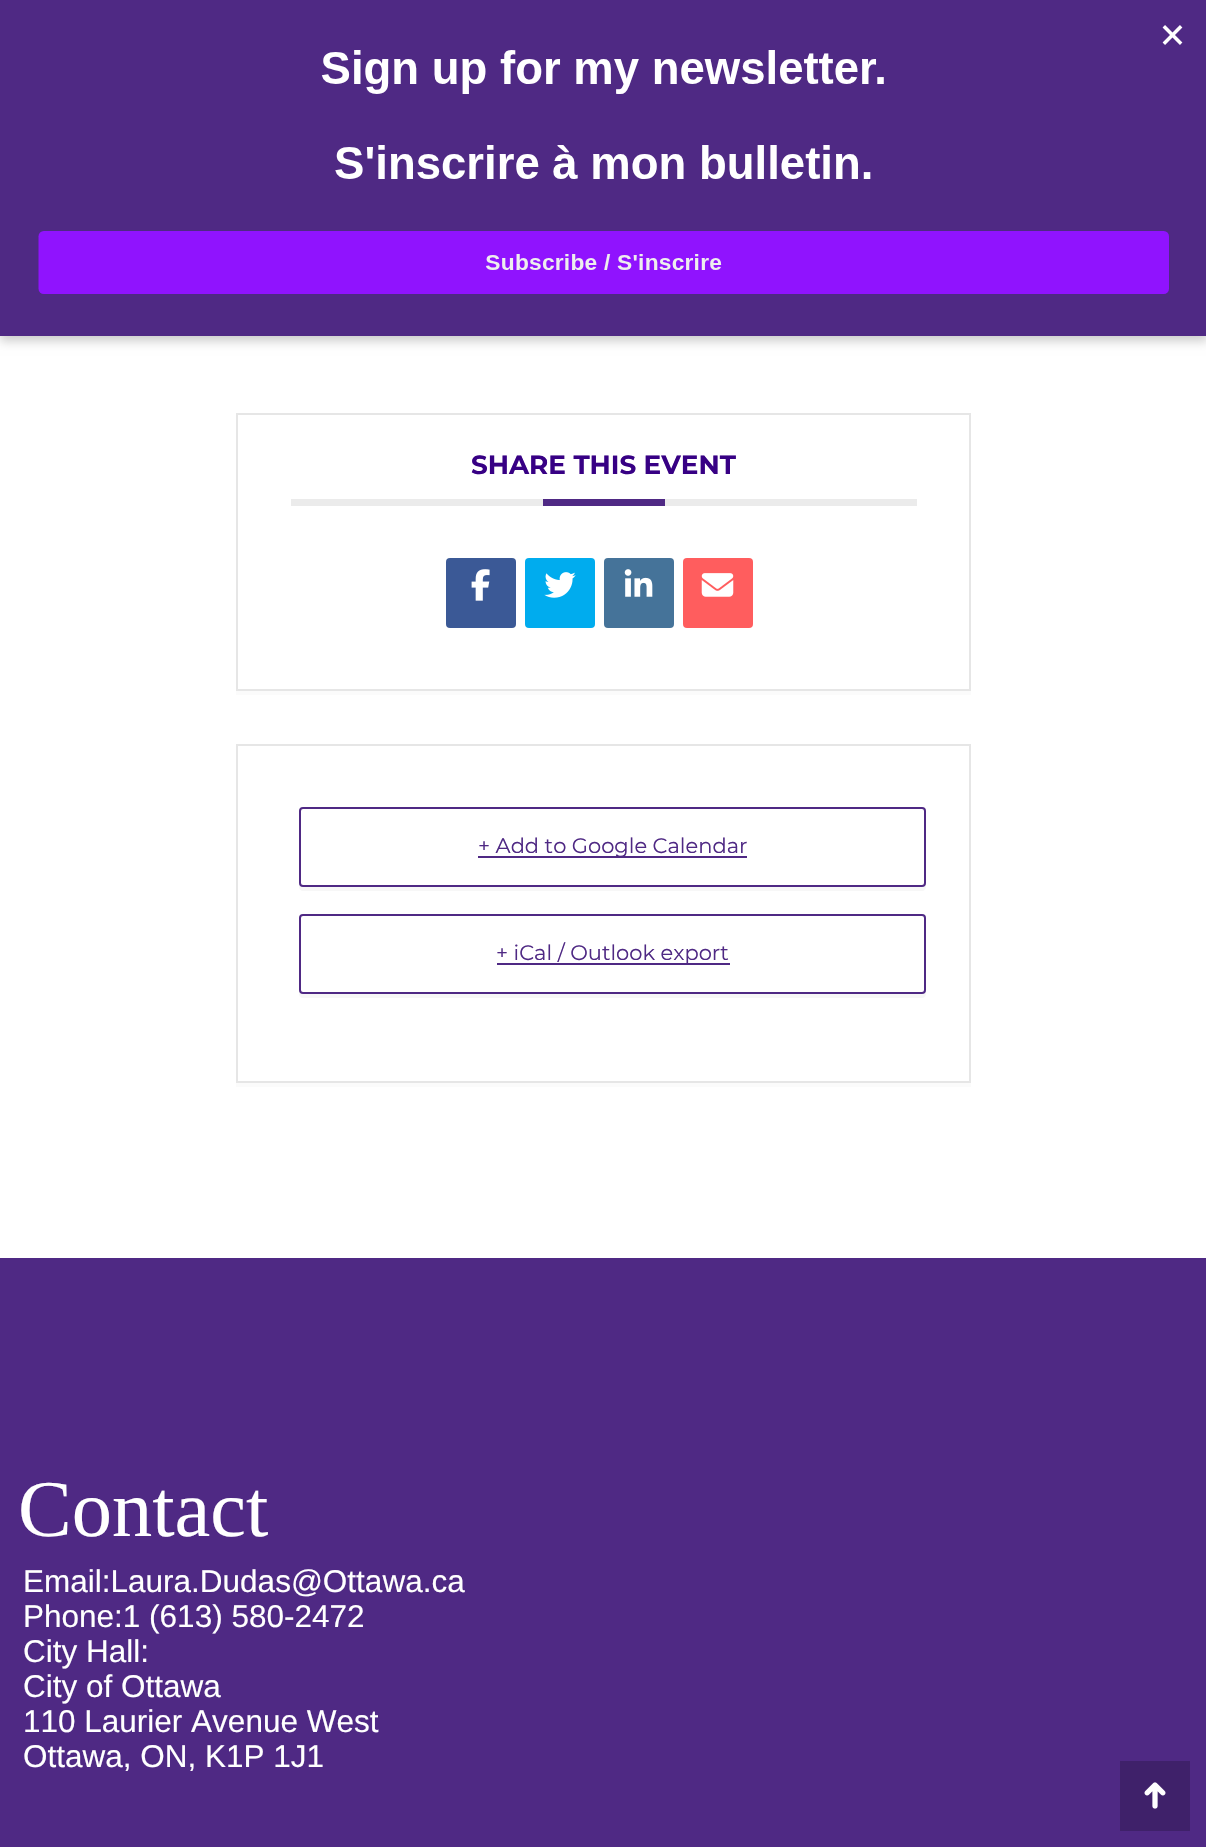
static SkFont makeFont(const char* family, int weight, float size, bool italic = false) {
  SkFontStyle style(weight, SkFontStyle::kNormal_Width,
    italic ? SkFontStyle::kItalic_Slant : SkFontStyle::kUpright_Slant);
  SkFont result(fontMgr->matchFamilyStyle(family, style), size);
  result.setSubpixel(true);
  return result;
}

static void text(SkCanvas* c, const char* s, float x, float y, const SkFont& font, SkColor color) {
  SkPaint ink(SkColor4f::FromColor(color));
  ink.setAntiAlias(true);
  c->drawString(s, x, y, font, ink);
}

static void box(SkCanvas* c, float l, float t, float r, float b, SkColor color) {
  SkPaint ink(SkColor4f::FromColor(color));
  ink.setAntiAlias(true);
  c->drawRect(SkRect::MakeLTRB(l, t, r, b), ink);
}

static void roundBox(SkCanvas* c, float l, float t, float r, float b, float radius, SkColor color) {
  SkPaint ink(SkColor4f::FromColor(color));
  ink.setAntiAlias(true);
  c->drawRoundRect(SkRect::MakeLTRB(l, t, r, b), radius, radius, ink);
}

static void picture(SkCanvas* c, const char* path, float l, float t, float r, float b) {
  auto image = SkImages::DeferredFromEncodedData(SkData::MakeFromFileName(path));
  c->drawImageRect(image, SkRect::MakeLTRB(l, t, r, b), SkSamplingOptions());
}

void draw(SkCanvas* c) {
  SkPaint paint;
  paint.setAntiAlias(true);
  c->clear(0xffffffff);
  paint.setColor(0x33000000);
  paint.setMaskFilter(SkMaskFilter::MakeBlur(kNormal_SkBlurStyle, 5));
  c->drawRect(SkRect::MakeLTRB(0, 5, 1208, 341), paint);
  paint.setMaskFilter(nullptr);
  picture(c, "img_01.png", 0, 0, 1206, 336);
  paint.setColor(0xfffbfbfb);
  c->drawPath(SkPathBuilder().moveTo(236, 417).lineTo(236, 695).lineTo(971, 695).lineTo(971, 691).lineTo(236, 691).close().detach(), paint);
  paint.setStyle(SkPaint::kStroke_Style);
  paint.setStrokeWidth(2);
  paint.setColor(0xffe6e6e6);
  c->drawRect(SkRect::MakeLTRB(237, 414, 970, 690), paint);
  box(c, 291, 499, 917, 506, 0xffebebeb);
  SkFont face1 = makeFont("Montserrat", 700, 26.25f);
  text(c, "SHARE THIS EVENT", 471, 474, face1, 0xff370084);
  box(c, 543, 499, 665, 506, 0xff4f2984);
  roundBox(c, 446, 558, 516, 628, 4, 0xff3b5996);
  picture(c, "img_02.png", 471, 569, 490, 601);
  roundBox(c, 525, 558, 595, 628, 4, 0xff00acee);
  picture(c, "img_03.png", 544, 572, 576, 598);
  roundBox(c, 604, 558, 674, 628, 4, 0xff457399);
  picture(c, "img_04.png", 624, 569, 653, 597);
  roundBox(c, 683, 558, 753, 628, 4, 0xffff5d5e);
  picture(c, "img_05.png", 701, 573, 734, 597);
  paint.setStyle(SkPaint::kFill_Style);
  paint.setColor(0xfffbfbfb);
  c->drawPath(SkPathBuilder().moveTo(236, 747).lineTo(236, 1087).lineTo(971, 1087).lineTo(971, 1083).lineTo(236, 1083).close().detach(), paint);
  paint.setStyle(SkPaint::kStroke_Style);
  paint.setColor(0xffe6e6e6);
  c->drawRect(SkRect::MakeLTRB(237, 745, 970, 1082), paint);
  paint.setStyle(SkPaint::kFill_Style);
  paint.setColor(0xfff7f7f7);
  c->drawPath(SkPathBuilder().moveTo(299, 813).lineTo(299, 887).cubicTo(299, 889, 301, 891, 303, 891).lineTo(922, 891).cubicTo(924, 891, 926, 889, 926, 887).lineTo(926, 813).lineTo(926, 884).cubicTo(926, 886, 924, 887, 922, 887).lineTo(303, 887).cubicTo(301, 887, 299, 886, 299, 884).close().detach(), paint);
  paint.setStyle(SkPaint::kStroke_Style);
  paint.setColor(0xff4f2984);
  c->drawRoundRect(SkRect::MakeLTRB(300, 808, 925, 886), 3, 3, paint);
  box(c, 478, 856, 747, 858, 0xff4f2984);
  SkFont face2 = makeFont("Montserrat", 400, 21);
  text(c, "+ Add to Google Calendar", 478, 853, face2, 0xff4f2984);
  paint.setStyle(SkPaint::kFill_Style);
  paint.setColor(0xfff7f7f7);
  c->drawPath(SkPathBuilder().moveTo(299, 920).lineTo(299, 994).cubicTo(299, 996, 301, 998, 303, 998).lineTo(922, 998).cubicTo(924, 998, 926, 996, 926, 994).lineTo(926, 920).lineTo(926, 990).cubicTo(926, 992, 924, 994, 922, 994).lineTo(303, 994).cubicTo(301, 994, 299, 992, 299, 990).close().detach(), paint);
  paint.setStyle(SkPaint::kStroke_Style);
  paint.setColor(0xff4f2984);
  c->drawRoundRect(SkRect::MakeLTRB(300, 915, 925, 993), 3, 3, paint);
  box(c, 497, 963, 730, 965, 0xff4f2984);
  text(c, "+ iCal / Outlook export", 496, 960, face2, 0xff4f2984);
  box(c, 0, 1258, 1206, 1847, 0xff4f2984);
  SkFont face3 = makeFont("Liberation Serif", 400, 80.5f);
  text(c, "Contact", 18, 1536, face3, 0xffffffff);
  SkFont face4 = makeFont("Liberation Sans", 400, 31.5f);
  text(c, "Email:Laura.Dudas@Ottawa.ca", 23, 1592, face4, 0xffffffff);
  text(c, "Phone:1 (613) 580-2472", 23, 1627, face4, 0xffffffff);
  text(c, "City Hall:", 23, 1662, face4, 0xffffffff);
  text(c, "City of Ottawa", 23, 1697, face4, 0xffffffff);
  text(c, "110 Laurier Avenue West", 23, 1732, face4, 0xffffffff);
  text(c, "Ottawa, ON, K1P 1J1", 23, 1767, face4, 0xffffffff);
  box(c, 1120, 1761, 1190, 1831, 0xff3f216a);
  picture(c, "img_06.png", 1144, 1782, 1166, 1809);
}
